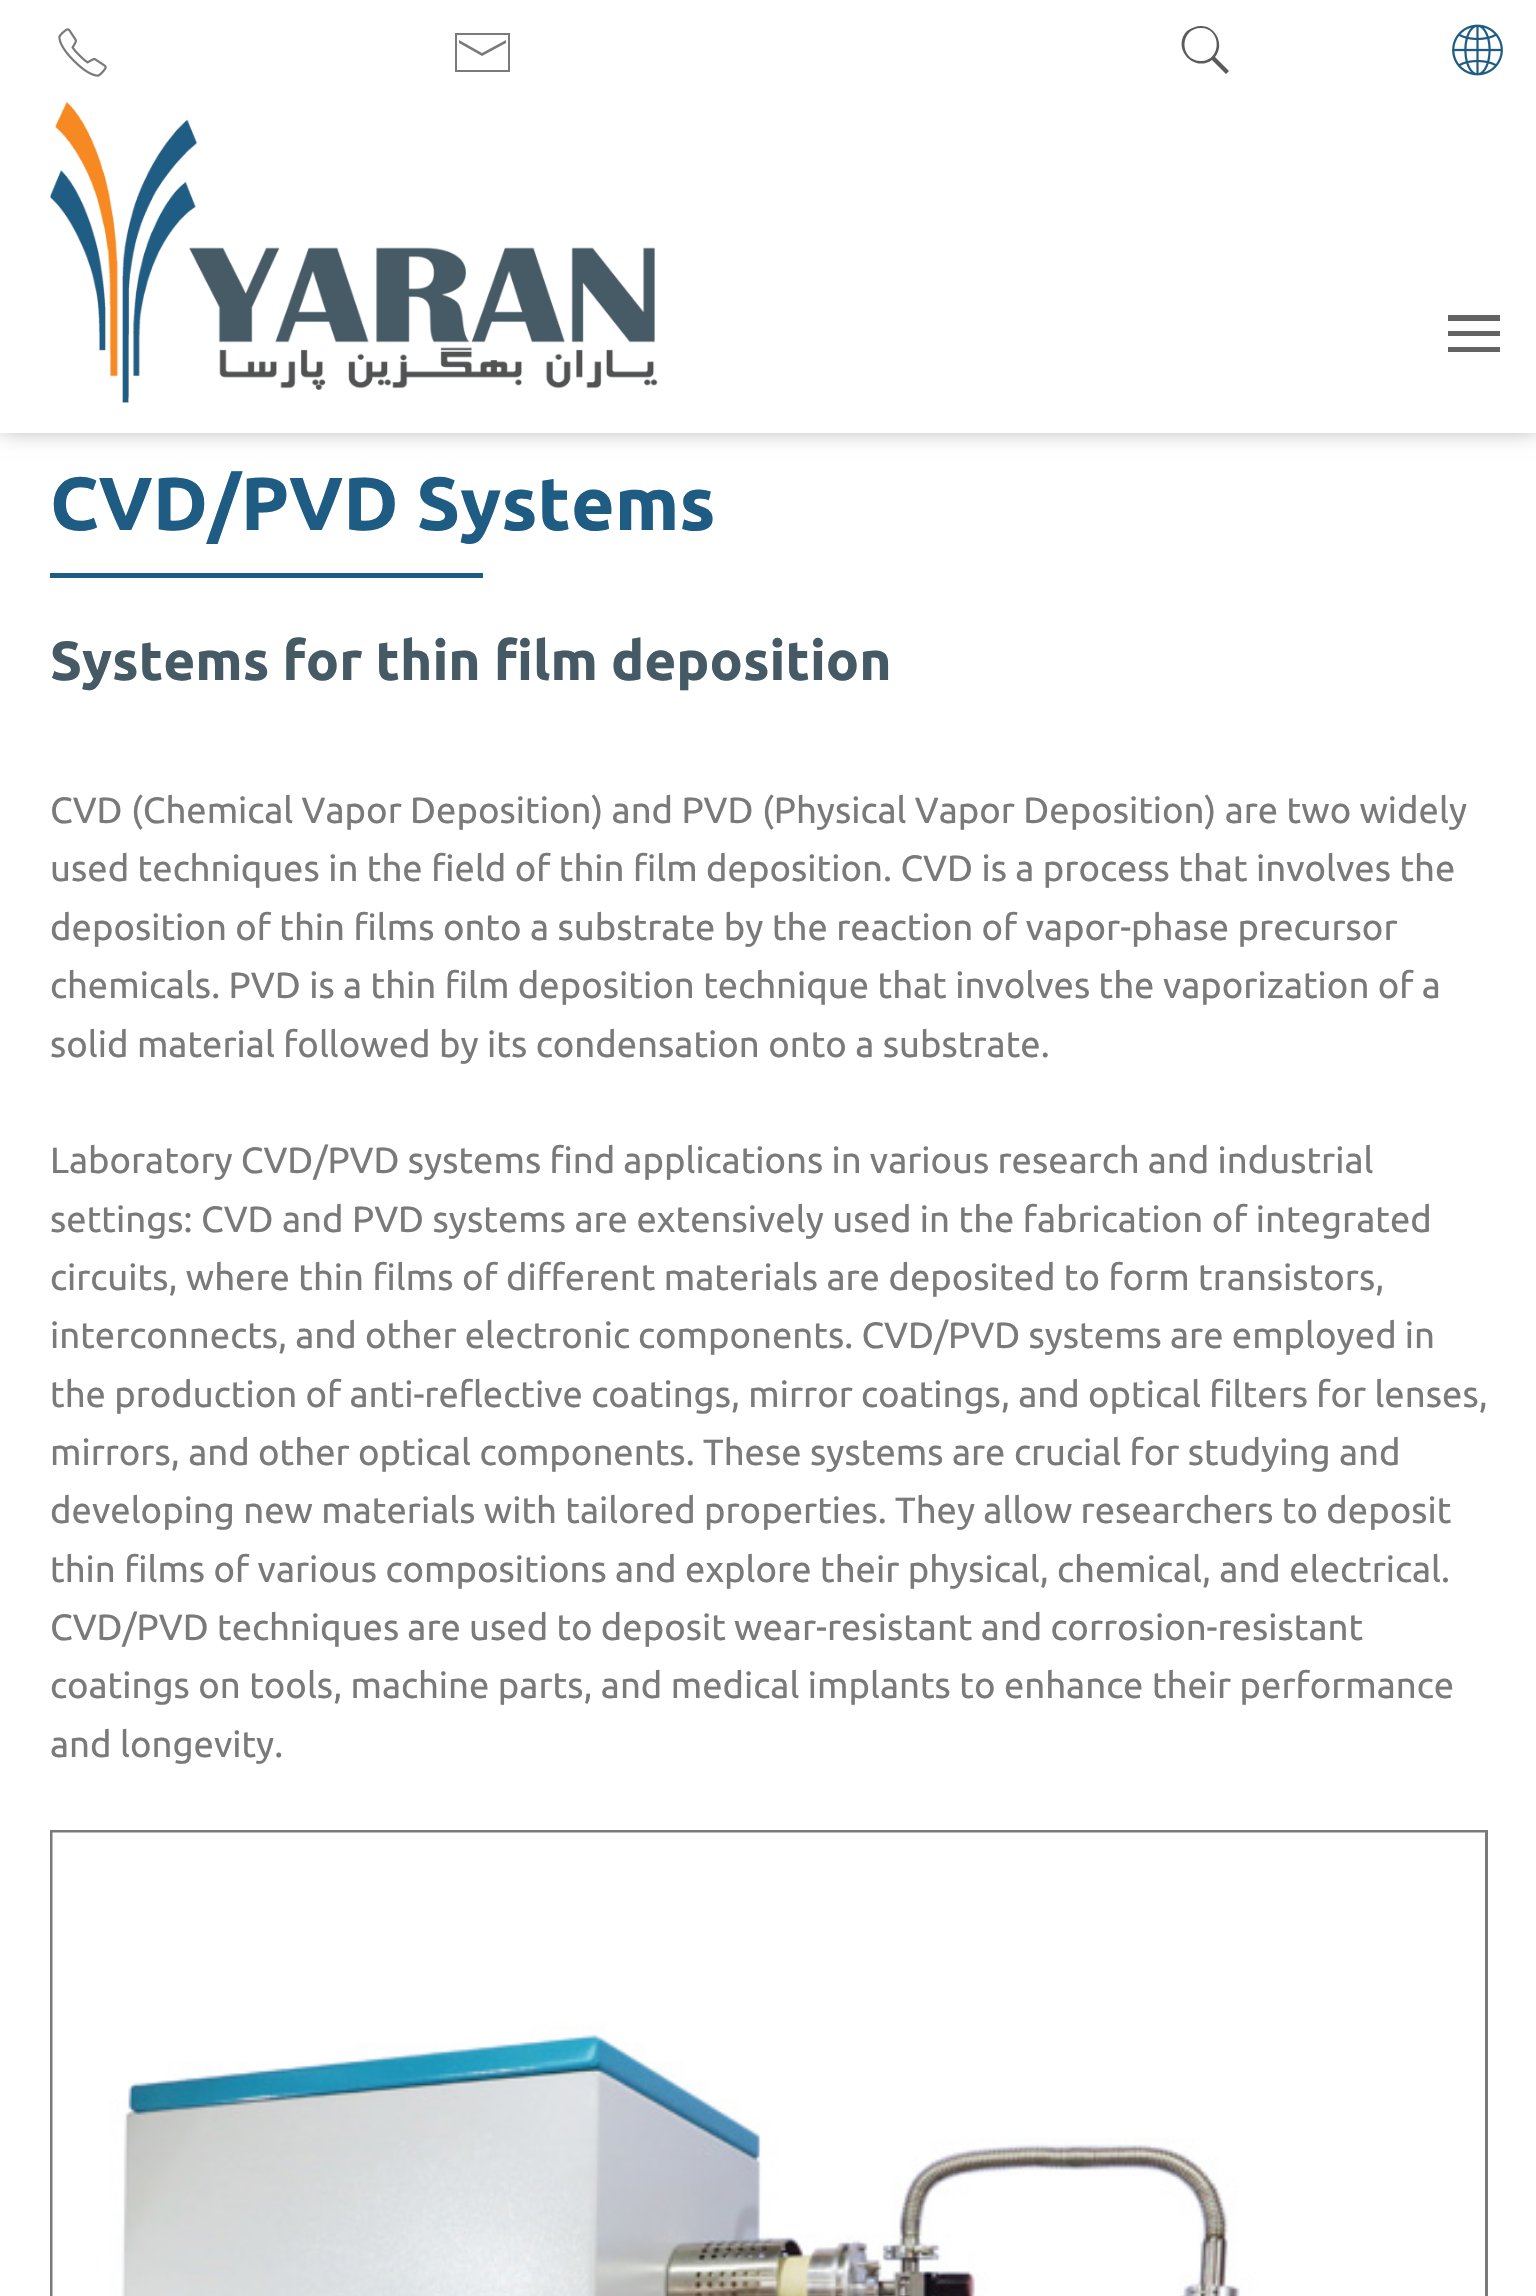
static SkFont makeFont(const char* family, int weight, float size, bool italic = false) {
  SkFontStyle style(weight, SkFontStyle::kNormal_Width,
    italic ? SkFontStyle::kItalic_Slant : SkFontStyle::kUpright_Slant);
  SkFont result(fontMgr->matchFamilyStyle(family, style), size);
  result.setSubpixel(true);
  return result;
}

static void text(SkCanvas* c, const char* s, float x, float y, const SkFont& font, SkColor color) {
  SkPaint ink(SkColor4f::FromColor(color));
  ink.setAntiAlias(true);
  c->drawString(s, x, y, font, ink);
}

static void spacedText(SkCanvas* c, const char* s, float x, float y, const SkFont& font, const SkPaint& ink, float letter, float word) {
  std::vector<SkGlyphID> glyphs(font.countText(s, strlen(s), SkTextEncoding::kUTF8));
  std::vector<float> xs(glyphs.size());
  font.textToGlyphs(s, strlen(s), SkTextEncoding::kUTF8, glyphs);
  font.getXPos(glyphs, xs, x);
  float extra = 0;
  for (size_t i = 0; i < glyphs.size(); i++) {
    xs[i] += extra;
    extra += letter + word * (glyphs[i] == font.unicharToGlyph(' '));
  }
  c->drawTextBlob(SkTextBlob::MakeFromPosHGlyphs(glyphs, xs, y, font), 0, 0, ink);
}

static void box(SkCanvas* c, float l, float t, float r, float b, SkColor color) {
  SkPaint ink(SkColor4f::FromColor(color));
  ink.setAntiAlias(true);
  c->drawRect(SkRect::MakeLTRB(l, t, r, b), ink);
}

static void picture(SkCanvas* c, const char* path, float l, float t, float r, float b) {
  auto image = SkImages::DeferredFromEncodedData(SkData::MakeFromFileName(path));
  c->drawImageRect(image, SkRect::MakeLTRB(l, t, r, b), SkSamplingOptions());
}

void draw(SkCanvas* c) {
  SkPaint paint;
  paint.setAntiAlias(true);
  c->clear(0xffffffff);
  paint.setColor(0x80000000);
  paint.setMaskFilter(SkMaskFilter::MakeBlur(kNormal_SkBlurStyle, 12.5f));
  c->drawRect(SkRect::MakeLTRB(0, -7, 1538, 425), paint);
  paint.setMaskFilter(nullptr);
  box(c, 0, 0, 1536, 433, 0xffffffff);
  picture(c, "img_01.png", 58, 28, 107, 77);
  paint.setColor(0xff7a7a7a);
  c->drawPath(SkPathBuilder().moveTo(455, 33).lineTo(455, 72).lineTo(510, 72).lineTo(510, 33).close().moveTo(457, 35).lineTo(508, 35).lineTo(508, 70).lineTo(457, 70).close().moveTo(459, 40).lineTo(459, 43).lineTo(482, 56).lineTo(506, 43).lineTo(506, 40).lineTo(482, 53).close().detach(), paint);
  paint.setColor(0xff5b5b5b);
  c->drawPath(SkPathBuilder().moveTo(1201, 26).cubicTo(1196, 26, 1191, 28, 1187, 31).cubicTo(1171, 48, 1194, 73, 1212, 60).lineTo(1226, 74).lineTo(1229, 71).lineTo(1215, 57).cubicTo(1225, 45, 1216, 26, 1201, 26).close().moveTo(1201, 28).cubicTo(1222, 28, 1222, 61, 1201, 61).cubicTo(1179, 61, 1179, 28, 1201, 28).close().detach(), paint);
  picture(c, "img_02.png", 1452, 24, 1503, 76);
  picture(c, "img_03.png", 50, 101, 658, 403);
  paint.setColor(0xff646363);
  c->drawPath(SkPathBuilder().moveTo(1448, 315).lineTo(1448, 321).lineTo(1500, 321).lineTo(1500, 315).close().moveTo(1448, 331).lineTo(1448, 336).lineTo(1500, 336).lineTo(1500, 331).close().moveTo(1448, 347).lineTo(1448, 352).lineTo(1500, 352).lineTo(1500, 347).close().detach(), paint);
  SkFont face1 = makeFont("Ubuntu", 700, 75);
  text(c, "CVD/PVD Systems", 50, 530, face1, 0xff1f5c84);
  box(c, 50, 573, 483, 578, 0xff1f5c84);
  SkFont face2 = makeFont("Ubuntu", 700, 55);
  text(c, "Systems for thin film deposition", 50, 680, face2, 0xff465a65);
  SkFont face3 = makeFont("Ubuntu", 400, 36.5f);
  paint.setColor(0xff7a7a7a);
  spacedText(c, "CVD (Chemical Vapor Deposition) and PVD (Physical Vapor Deposition) are two widely", 50, 823, face3, paint, 0, -0.1f);
  text(c, "used techniques in the field of thin film deposition. CVD is a process that involves the", 50, 881, face3, 0xff7a7a7a);
  text(c, "deposition of thin films onto a substrate by the reaction of vapor-phase precursor", 50, 940, face3, 0xff7a7a7a);
  text(c, "chemicals. PVD is a thin film deposition technique that involves the vaporization of a", 50, 998, face3, 0xff7a7a7a);
  text(c, "solid material followed by its condensation onto a substrate.", 50, 1057, face3, 0xff7a7a7a);
  spacedText(c, "Laboratory CVD/PVD systems find applications in various research and industrial", 50, 1173, face3, paint, 0, -0.25f);
  text(c, "settings: CVD and PVD systems are extensively used in the fabrication of integrated", 50, 1232, face3, 0xff7a7a7a);
  text(c, "circuits, where thin films of different materials are deposited to form transistors,", 50, 1290, face3, 0xff7a7a7a);
  spacedText(c, "interconnects, and other electronic components. CVD/PVD systems are employed in", 50, 1348, face3, paint, 0, -0.25f);
  spacedText(c, "the production of anti-reflective coatings, mirror coatings, and optical filters for lenses,", 50, 1407, face3, paint, 0, -0.1f);
  text(c, "mirrors, and other optical components. These systems are crucial for studying and", 50, 1465, face3, 0xff7a7a7a);
  spacedText(c, "developing new materials with tailored properties. They allow researchers to deposit", 50, 1523, face3, paint, 0, -0.1f);
  text(c, "thin films of various compositions and explore their physical, chemical, and electrical.", 50, 1582, face3, 0xff7a7a7a);
  spacedText(c, "CVD/PVD techniques are used to deposit wear-resistant and corrosion-resistant", 50, 1640, face3, paint, 0, -0.25f);
  text(c, "coatings on tools, machine parts, and medical implants to enhance their performance", 50, 1698, face3, 0xff7a7a7a);
  text(c, "and longevity.", 50, 1757, face3, 0xff7a7a7a);
  paint.setStyle(SkPaint::kStroke_Style);
  paint.setStrokeWidth(3);
  c->drawRect(SkRect::MakeLTRB(51.5f, 1831.5f, 1486.5f, 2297.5f), paint);
  picture(c, "img_04.png", 52, 1832, 1485, 2296);
}
